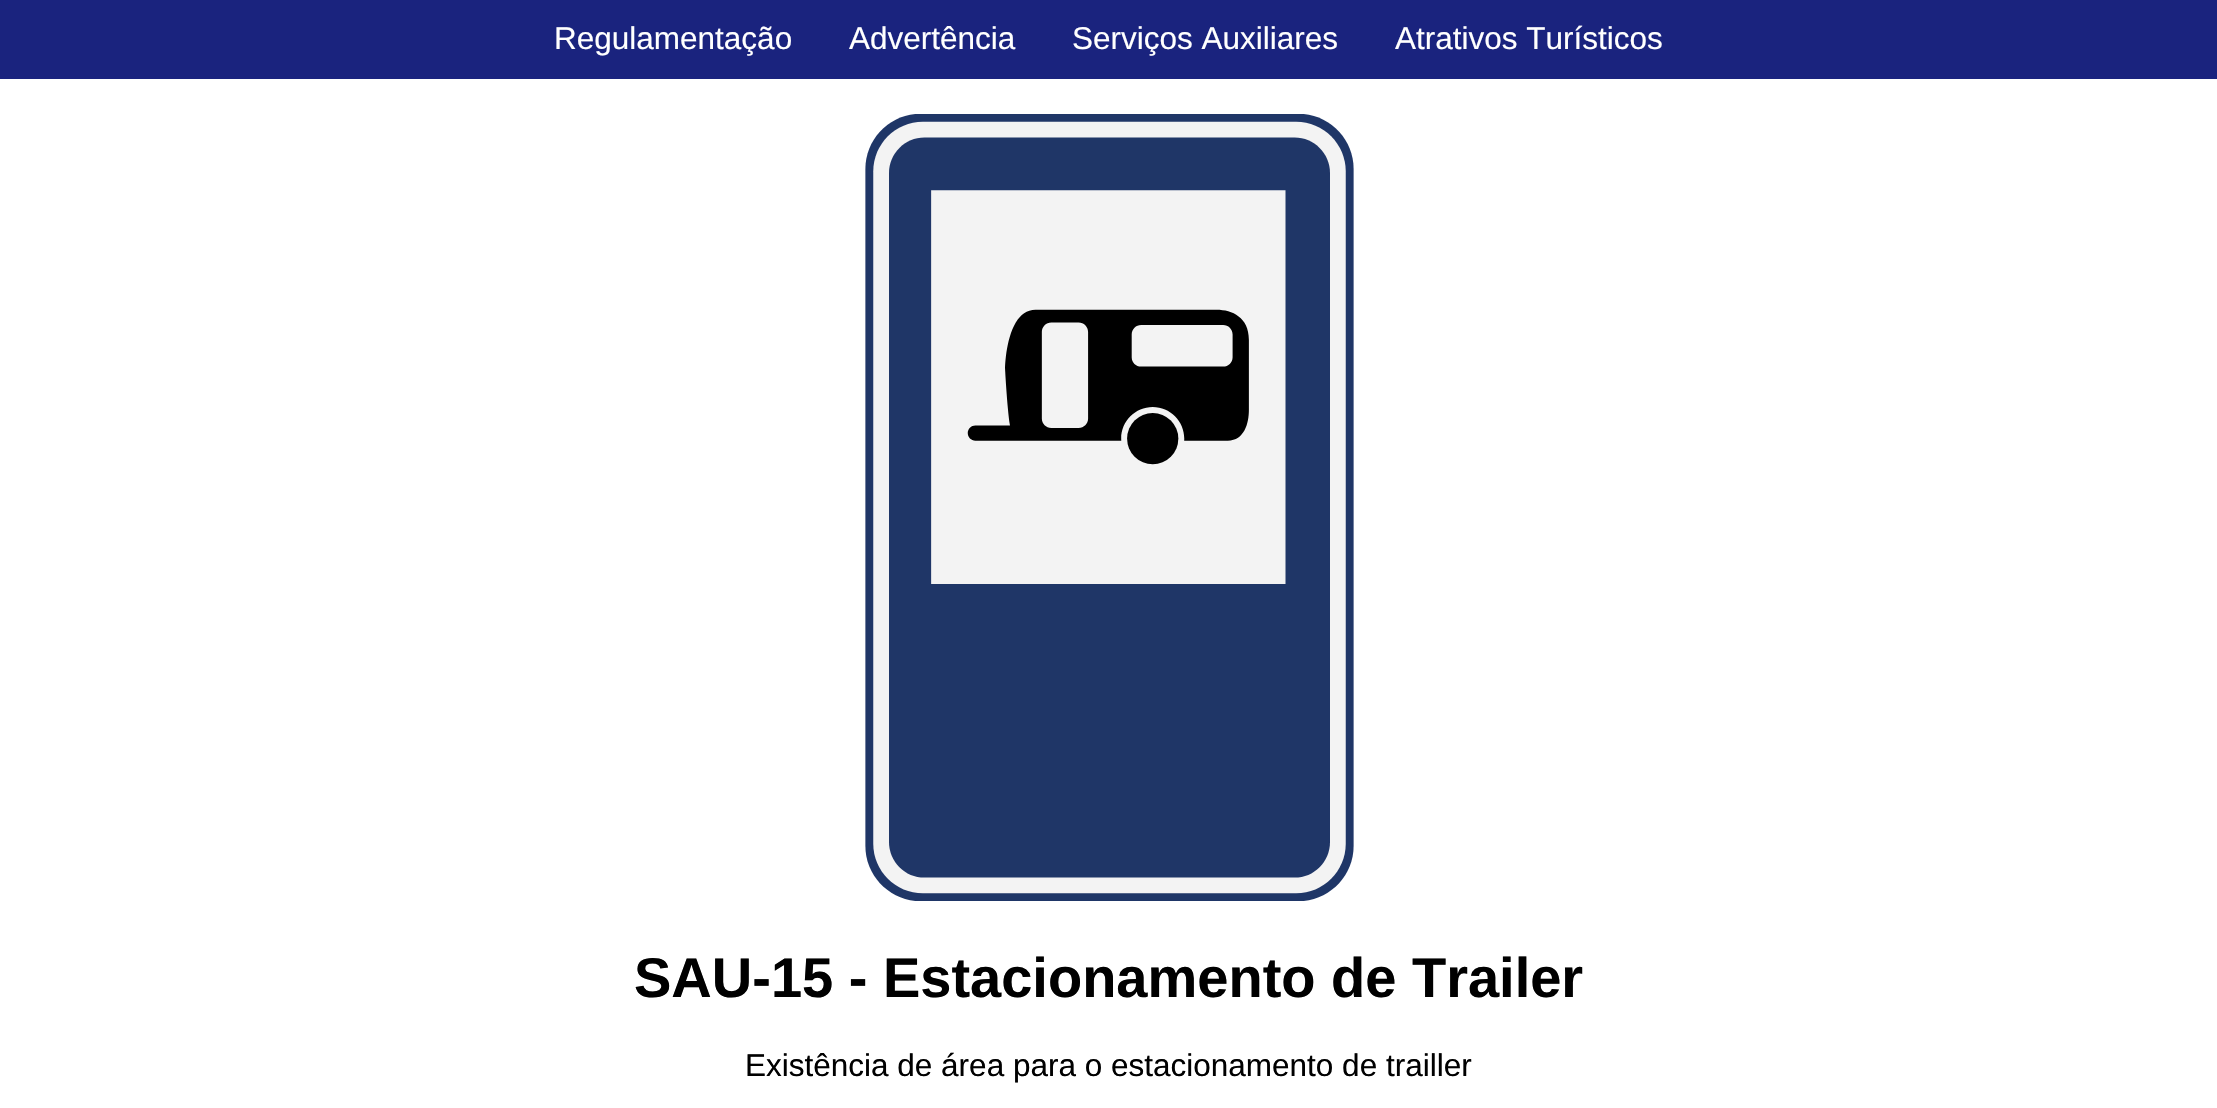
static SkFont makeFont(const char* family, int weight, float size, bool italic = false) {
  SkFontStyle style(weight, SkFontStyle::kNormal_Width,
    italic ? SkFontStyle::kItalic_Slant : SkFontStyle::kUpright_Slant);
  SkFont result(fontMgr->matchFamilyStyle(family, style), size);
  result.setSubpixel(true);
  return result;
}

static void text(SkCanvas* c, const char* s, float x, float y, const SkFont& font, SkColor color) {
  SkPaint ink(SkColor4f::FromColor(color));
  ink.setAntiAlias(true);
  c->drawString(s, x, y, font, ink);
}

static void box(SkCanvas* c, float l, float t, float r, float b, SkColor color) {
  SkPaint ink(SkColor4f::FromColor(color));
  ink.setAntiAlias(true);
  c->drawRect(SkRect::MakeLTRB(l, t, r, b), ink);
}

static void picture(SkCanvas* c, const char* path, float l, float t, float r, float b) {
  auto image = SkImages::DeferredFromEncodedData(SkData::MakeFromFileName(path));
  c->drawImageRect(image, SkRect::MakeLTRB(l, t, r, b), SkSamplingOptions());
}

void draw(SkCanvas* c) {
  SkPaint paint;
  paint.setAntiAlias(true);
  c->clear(0xffffffff);
  box(c, 0, 0, 2217, 79, 0xff1a237e);
  SkFont face1 = makeFont("Liberation Sans", 400, 31.5f);
  text(c, "Regulamentação", 554, 49, face1, 0xffffffff);
  text(c, "Advertência", 849, 49, face1, 0xffffffff);
  text(c, "Serviços Auxiliares", 1072, 49, face1, 0xffffffff);
  text(c, "Atrativos Turísticos", 1395, 49, face1, 0xffffffff);
  picture(c, "img_01.png", 865, 114, 1354, 901);
  SkFont face2 = makeFont("Liberation Sans", 700, 56);
  text(c, "SAU-15 - Estacionamento de Trailer", 634, 997, face2, 0xff000000);
  text(c, "Existência de área para o estacionamento de trailler", 745, 1076, face1, 0xff000000);
}
